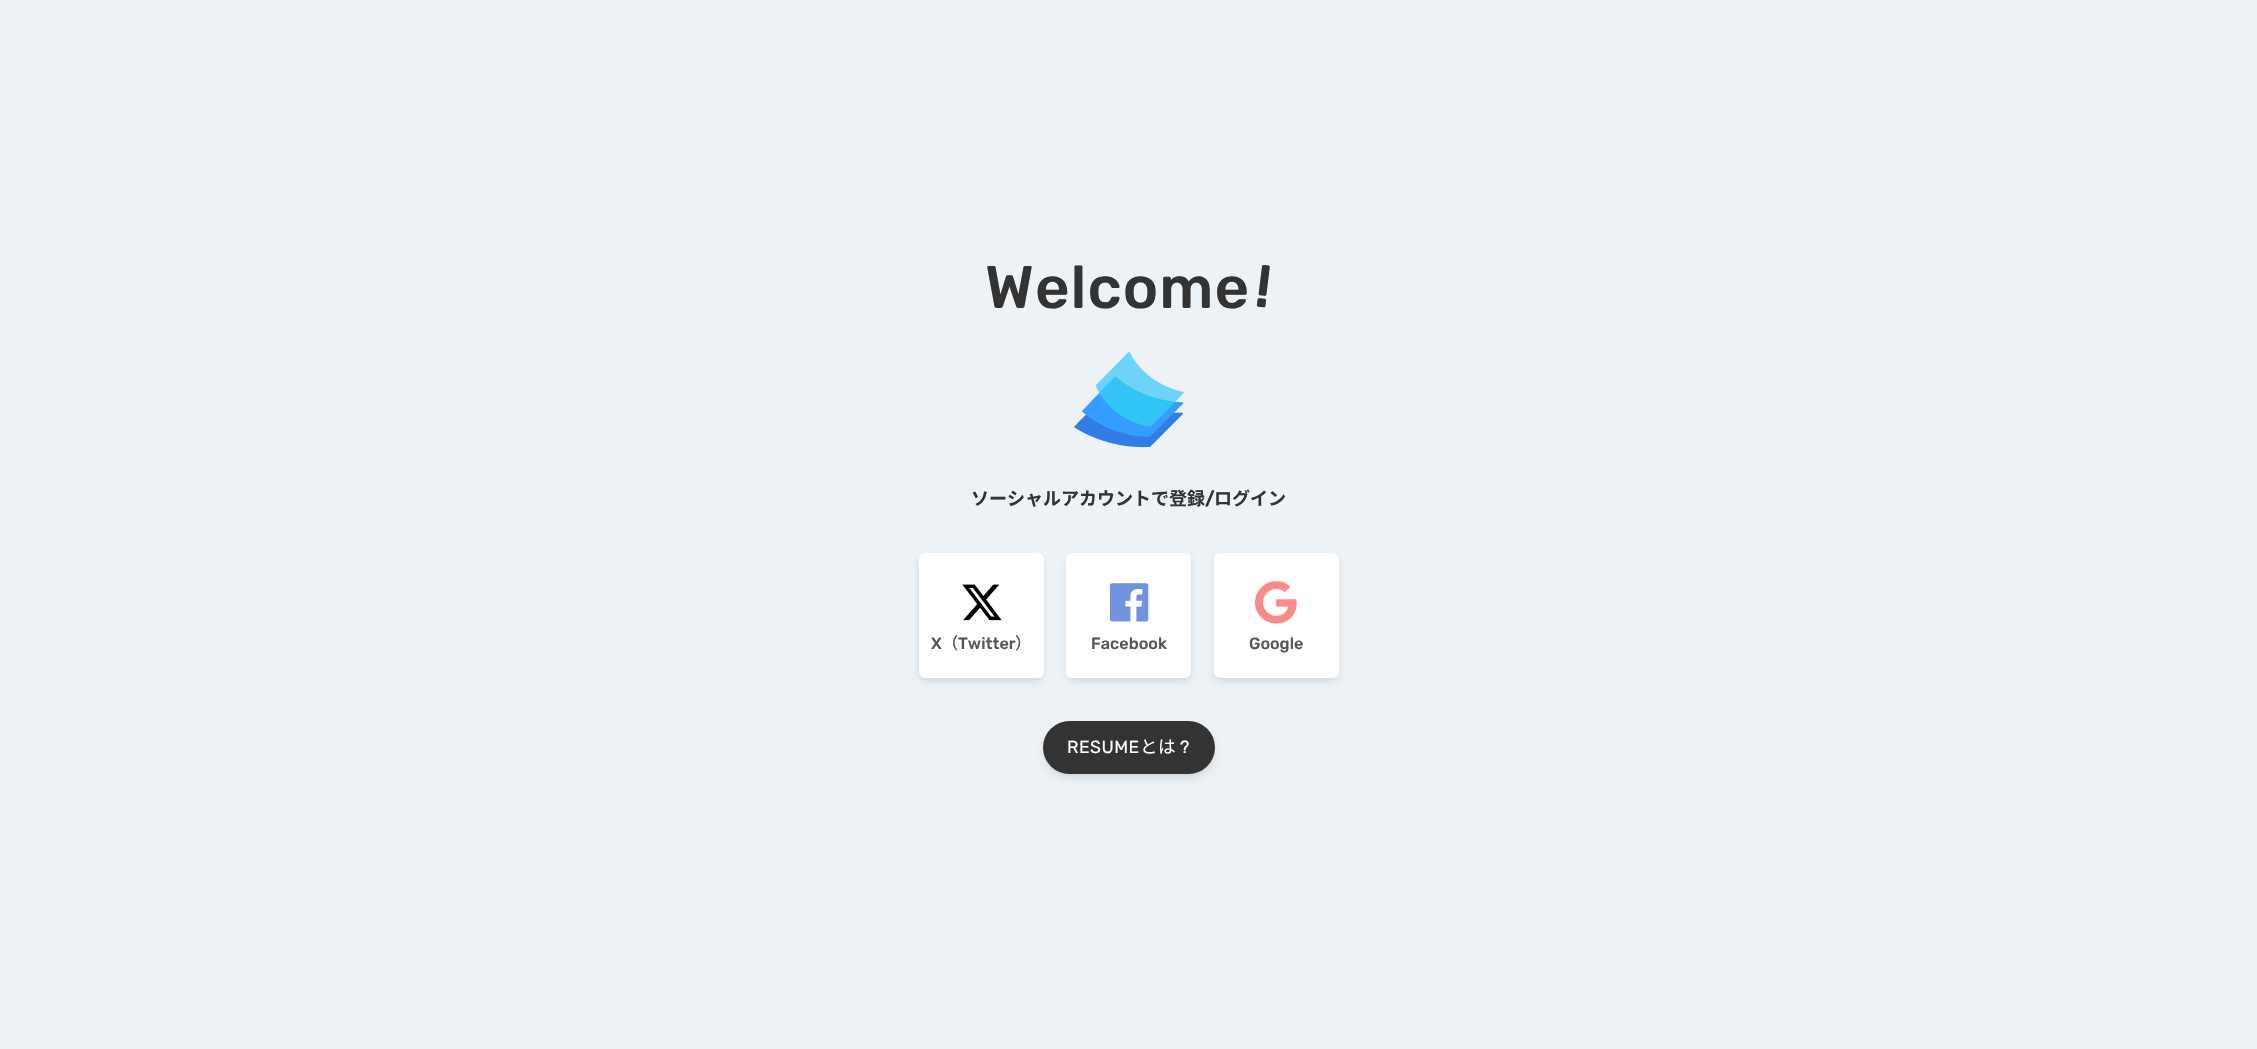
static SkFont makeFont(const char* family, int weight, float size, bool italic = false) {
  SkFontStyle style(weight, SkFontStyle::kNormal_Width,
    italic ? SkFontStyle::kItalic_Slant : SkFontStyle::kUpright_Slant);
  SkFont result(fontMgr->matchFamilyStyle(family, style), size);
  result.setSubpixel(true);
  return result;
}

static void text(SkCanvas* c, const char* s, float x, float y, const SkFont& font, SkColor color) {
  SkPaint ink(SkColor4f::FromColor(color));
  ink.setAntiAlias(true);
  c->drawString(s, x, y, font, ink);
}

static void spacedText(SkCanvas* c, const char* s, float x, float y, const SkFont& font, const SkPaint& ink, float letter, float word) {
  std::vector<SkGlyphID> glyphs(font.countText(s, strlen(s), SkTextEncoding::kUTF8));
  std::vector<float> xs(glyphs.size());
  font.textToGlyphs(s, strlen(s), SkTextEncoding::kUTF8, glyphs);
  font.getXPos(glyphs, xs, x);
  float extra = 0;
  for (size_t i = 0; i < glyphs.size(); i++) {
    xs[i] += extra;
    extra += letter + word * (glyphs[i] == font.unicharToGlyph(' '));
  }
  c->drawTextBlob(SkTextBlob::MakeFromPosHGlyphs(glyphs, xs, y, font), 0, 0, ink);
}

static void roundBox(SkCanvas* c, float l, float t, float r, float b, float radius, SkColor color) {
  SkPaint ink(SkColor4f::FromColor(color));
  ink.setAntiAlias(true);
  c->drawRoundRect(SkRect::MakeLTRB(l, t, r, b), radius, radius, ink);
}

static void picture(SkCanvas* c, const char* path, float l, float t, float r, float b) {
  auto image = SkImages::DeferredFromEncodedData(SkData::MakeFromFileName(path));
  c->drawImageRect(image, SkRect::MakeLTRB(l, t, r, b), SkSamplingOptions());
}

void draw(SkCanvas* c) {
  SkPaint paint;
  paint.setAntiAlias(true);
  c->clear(0xffedf2f7);
  SkFont face1 = makeFont("Rubik", 500, 60);
  paint.setColor(0xff333333);
  spacedText(c, "Welcome", 985, 308, face1, paint, 1, 0);
  c->save();
  c->rotate(7, 1253, 306);
  spacedText(c, "!", 1253, 306, face1, paint, 1, 0);
  c->restore();
  picture(c, "img_01.png", 1074, 351, 1184, 448);
  SkFont face2 = makeFont("Noto Sans JP", 700, 18);
  text(c, "ソーシャルアカウントで登録", 971, 505, face2, 0xff333333);
  SkFont face3 = makeFont("Rubik", 700, 18);
  text(c, "/", 1205, 505, face3, 0xff333333);
  text(c, "ログイン", 1214, 505, face2, 0xff333333);
  paint.setColor(0x2e000000);
  paint.setMaskFilter(SkMaskFilter::MakeBlur(kNormal_SkBlurStyle, 4));
  c->drawRoundRect(SkRect::MakeLTRB(921, 559, 1041, 679), 4, 4, paint);
  paint.setMaskFilter(nullptr);
  roundBox(c, 919, 553, 1044, 678, 6, 0xffffffff);
  picture(c, "img_02.png", 962, 584, 1002, 621);
  SkFont face4 = makeFont("Rubik", 500, 16.25f);
  text(c, "X", 931, 649, face4, 0xff565656);
  SkFont face5 = makeFont("Noto Sans JP", 500, 16.25f);
  text(c, "（", 942, 649, face5, 0xff565656);
  text(c, "Twitter", 958, 649, face4, 0xff565656);
  text(c, "）", 1015, 649, face5, 0xff565656);
  paint.setMaskFilter(SkMaskFilter::MakeBlur(kNormal_SkBlurStyle, 4));
  c->drawRoundRect(SkRect::MakeLTRB(1069, 559, 1189, 679), 4, 4, paint);
  paint.setMaskFilter(nullptr);
  roundBox(c, 1066, 553, 1191, 678, 6, 0xffffffff);
  picture(c, "img_03.png", 1110, 583, 1149, 622);
  text(c, "Facebook", 1091, 649, face4, 0xff565656);
  paint.setMaskFilter(SkMaskFilter::MakeBlur(kNormal_SkBlurStyle, 4));
  c->drawRoundRect(SkRect::MakeLTRB(1216, 559, 1336, 679), 4, 4, paint);
  paint.setMaskFilter(nullptr);
  roundBox(c, 1214, 553, 1339, 678, 6, 0xffffffff);
  picture(c, "img_04.png", 1255, 581, 1297, 624);
  text(c, "Google", 1249, 649, face4, 0xff565656);
  paint.setColor(0x26000000);
  paint.setMaskFilter(SkMaskFilter::MakeBlur(kNormal_SkBlurStyle, 5));
  c->drawRoundRect(SkRect::MakeLTRB(1045, 729, 1213, 776), 23.5f, 23.5f, paint);
  paint.setMaskFilter(nullptr);
  roundBox(c, 1043, 721, 1215, 774, 26.5f, 0xff333333);
  SkFont face6 = makeFont("Rubik", 400, 17.5f);
  paint.setColor(0xffffffff);
  spacedText(c, "RESUME", 1067, 753, face6, paint, 0.5f, 0);
  SkFont face7 = makeFont("Noto Sans JP", 400, 17.5f);
  spacedText(c, "とは", 1140, 753, face7, paint, 0.5f, 0);
  spacedText(c, "?", 1180, 753, face6, paint, 0.5f, 0);
}
